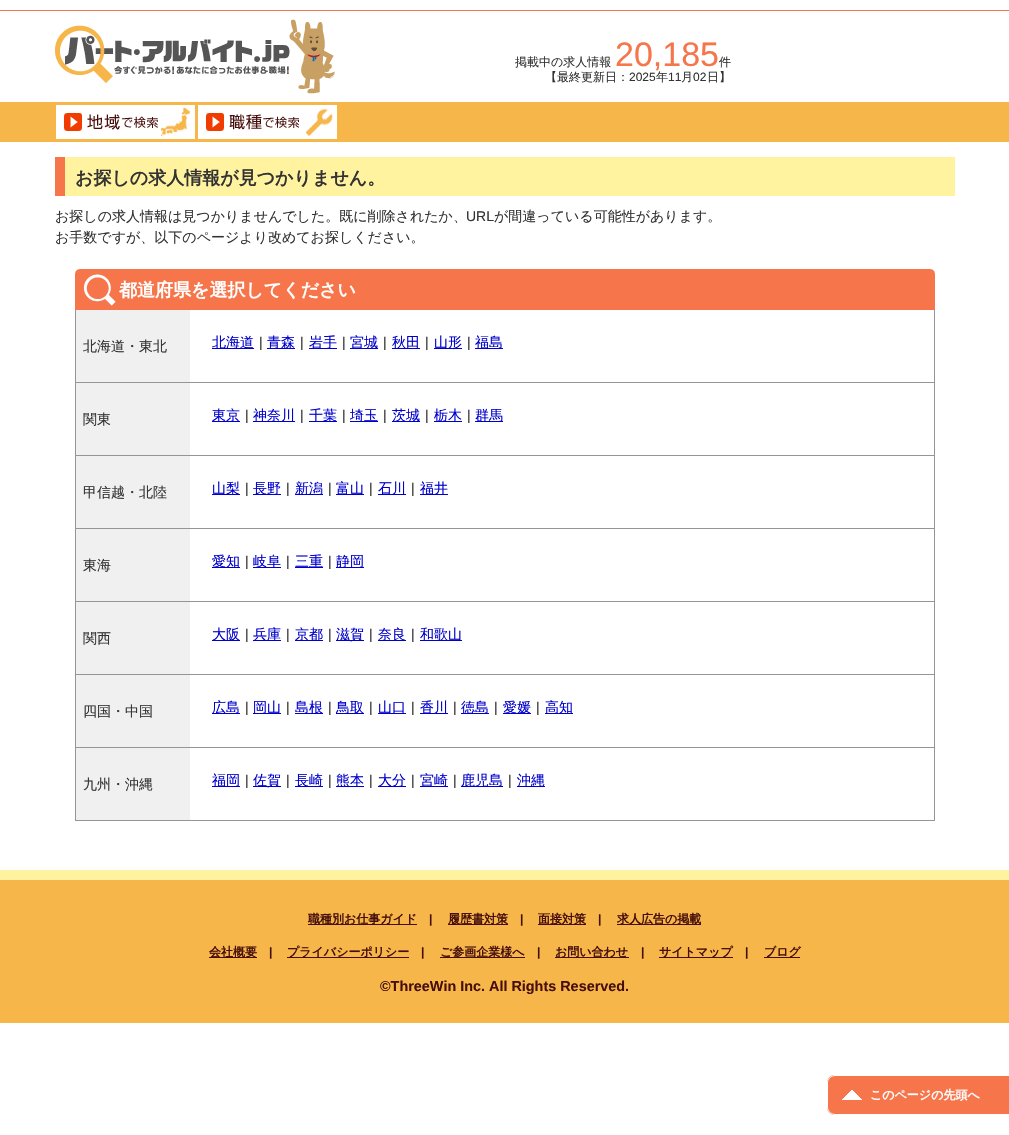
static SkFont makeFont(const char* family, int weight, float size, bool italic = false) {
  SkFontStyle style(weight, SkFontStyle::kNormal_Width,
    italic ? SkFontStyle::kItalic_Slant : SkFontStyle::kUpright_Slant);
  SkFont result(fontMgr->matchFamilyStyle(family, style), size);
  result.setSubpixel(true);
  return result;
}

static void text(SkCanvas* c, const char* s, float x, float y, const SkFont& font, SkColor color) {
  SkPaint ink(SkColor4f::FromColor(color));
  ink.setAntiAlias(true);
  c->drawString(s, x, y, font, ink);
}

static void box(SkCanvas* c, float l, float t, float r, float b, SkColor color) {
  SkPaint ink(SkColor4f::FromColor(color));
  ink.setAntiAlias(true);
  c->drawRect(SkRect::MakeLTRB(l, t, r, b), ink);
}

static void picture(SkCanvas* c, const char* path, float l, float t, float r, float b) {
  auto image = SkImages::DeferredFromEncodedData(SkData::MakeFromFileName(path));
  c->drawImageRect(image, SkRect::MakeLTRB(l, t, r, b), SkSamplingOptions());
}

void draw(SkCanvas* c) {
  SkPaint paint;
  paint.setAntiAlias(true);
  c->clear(0xffffffff);
  box(c, 0, 10, 1009, 11, 0xfff6754a);
  picture(c, "img_01.png", 55, 19, 335, 94);
  SkFont face1 = makeFont("WenQuanYi Zen Hei", 500, 12);
  text(c, "掲載中の求人情報", 515, 66, face1, 0xff333333);
  SkFont face2 = makeFont("Liberation Sans", 400, 34);
  text(c, "20,185", 615, 66, face2, 0xfff6754a);
  text(c, "件", 719, 66, face1, 0xff333333);
  text(c, "【最終更新日：", 545, 81, face1, 0xff333333);
  SkFont face3 = makeFont("Liberation Sans", 400, 12);
  text(c, "2025", 629, 81, face3, 0xff333333);
  text(c, "年", 656, 81, face1, 0xff333333);
  text(c, "11", 668, 81, face3, 0xff333333);
  text(c, "月", 681, 81, face1, 0xff333333);
  text(c, "02", 693, 81, face3, 0xff333333);
  text(c, "日】", 707, 81, face1, 0xff333333);
  box(c, 0, 102, 1009, 142, 0xfff6b64a);
  picture(c, "img_02.png", 56, 105, 195, 139);
  picture(c, "img_03.png", 198, 105, 337, 139);
  box(c, 65, 157, 955, 196, 0xfffff3a0);
  box(c, 55, 157, 65, 196, 0xfff6754a);
  SkFont face4 = makeFont("WenQuanYi Zen Hei", 700, 18);
  text(c, "お探しの求人情報が見つかりません。", 75, 184, face4, 0xff333333);
  SkFont face5 = makeFont("WenQuanYi Zen Hei", 500, 14);
  text(c, "お探しの求人情報は見つかりませんでした。既に削除されたか、", 55, 221, face5, 0xff333333);
  SkFont face6 = makeFont("Liberation Sans", 400, 14);
  text(c, "URL", 466, 221, face6, 0xff333333);
  text(c, "が間違っている可能性があります。", 494, 221, face5, 0xff333333);
  text(c, "お手数ですが、以下のページより改めてお探しください。", 55, 242, face5, 0xff333333);
  box(c, 75, 306, 935, 310, 0xfff6754a);
  picture(c, "img_04.png", 75, 269, 935, 306);
  text(c, "都道府県を選択してください", 119, 296, face4, 0xffffffff);
  box(c, 75, 310, 76, 821, 0xff959595);
  box(c, 76, 310, 190, 382, 0xfff0f0f0);
  box(c, 76, 382, 190, 383, 0xff959595);
  text(c, "北海道・東北", 83, 351, face5, 0xff333333);
  box(c, 934, 310, 935, 821, 0xff959595);
  box(c, 190, 382, 935, 383, 0xff959595);
  box(c, 212, 348, 254, 349, 0xff0000cc);
  text(c, "北海道", 212, 347, face5, 0xff0000cc);
  text(c, "|", 259, 347, face6, 0xff333333);
  box(c, 267, 348, 295, 349, 0xff0000cc);
  text(c, "青森", 267, 347, face5, 0xff0000cc);
  text(c, "|", 300, 347, face6, 0xff333333);
  box(c, 309, 348, 337, 349, 0xff0000cc);
  text(c, "岩手", 309, 347, face5, 0xff0000cc);
  text(c, "|", 342, 347, face6, 0xff333333);
  box(c, 350, 348, 378, 349, 0xff0000cc);
  text(c, "宮城", 350, 347, face5, 0xff0000cc);
  text(c, "|", 383, 347, face6, 0xff333333);
  box(c, 392, 348, 420, 349, 0xff0000cc);
  text(c, "秋田", 392, 347, face5, 0xff0000cc);
  text(c, "|", 425, 347, face6, 0xff333333);
  box(c, 434, 348, 462, 349, 0xff0000cc);
  text(c, "山形", 434, 347, face5, 0xff0000cc);
  text(c, "|", 467, 347, face6, 0xff333333);
  box(c, 475, 348, 503, 349, 0xff0000cc);
  text(c, "福島", 475, 347, face5, 0xff0000cc);
  box(c, 76, 383, 190, 455, 0xfff0f0f0);
  box(c, 76, 455, 935, 456, 0xff959595);
  text(c, "関東", 83, 424, face5, 0xff333333);
  box(c, 212, 421, 240, 422, 0xff0000cc);
  text(c, "東京", 212, 420, face5, 0xff0000cc);
  text(c, "|", 245, 420, face6, 0xff333333);
  box(c, 253, 421, 295, 422, 0xff0000cc);
  text(c, "神奈川", 253, 420, face5, 0xff0000cc);
  text(c, "|", 300, 420, face6, 0xff333333);
  box(c, 309, 421, 337, 422, 0xff0000cc);
  text(c, "千葉", 309, 420, face5, 0xff0000cc);
  text(c, "|", 342, 420, face6, 0xff333333);
  box(c, 350, 421, 378, 422, 0xff0000cc);
  text(c, "埼玉", 350, 420, face5, 0xff0000cc);
  text(c, "|", 383, 420, face6, 0xff333333);
  box(c, 392, 421, 420, 422, 0xff0000cc);
  text(c, "茨城", 392, 420, face5, 0xff0000cc);
  text(c, "|", 425, 420, face6, 0xff333333);
  box(c, 434, 421, 462, 422, 0xff0000cc);
  text(c, "栃木", 434, 420, face5, 0xff0000cc);
  text(c, "|", 467, 420, face6, 0xff333333);
  box(c, 475, 421, 503, 422, 0xff0000cc);
  text(c, "群馬", 475, 420, face5, 0xff0000cc);
  box(c, 76, 456, 190, 528, 0xfff0f0f0);
  box(c, 76, 528, 935, 529, 0xff959595);
  text(c, "甲信越・北陸", 83, 497, face5, 0xff333333);
  box(c, 212, 494, 240, 495, 0xff0000cc);
  text(c, "山梨", 212, 493, face5, 0xff0000cc);
  text(c, "|", 245, 493, face6, 0xff333333);
  box(c, 253, 494, 281, 495, 0xff0000cc);
  text(c, "長野", 253, 493, face5, 0xff0000cc);
  text(c, "|", 286, 493, face6, 0xff333333);
  box(c, 295, 494, 323, 495, 0xff0000cc);
  text(c, "新潟", 295, 493, face5, 0xff0000cc);
  text(c, "|", 328, 493, face6, 0xff333333);
  box(c, 336, 494, 364, 495, 0xff0000cc);
  text(c, "富山", 336, 493, face5, 0xff0000cc);
  text(c, "|", 369, 493, face6, 0xff333333);
  box(c, 378, 494, 406, 495, 0xff0000cc);
  text(c, "石川", 378, 493, face5, 0xff0000cc);
  text(c, "|", 411, 493, face6, 0xff333333);
  box(c, 420, 494, 448, 495, 0xff0000cc);
  text(c, "福井", 420, 493, face5, 0xff0000cc);
  box(c, 76, 529, 190, 601, 0xfff0f0f0);
  box(c, 76, 601, 935, 602, 0xff959595);
  text(c, "東海", 83, 570, face5, 0xff333333);
  box(c, 212, 567, 240, 568, 0xff0000cc);
  text(c, "愛知", 212, 566, face5, 0xff0000cc);
  text(c, "|", 245, 566, face6, 0xff333333);
  box(c, 253, 567, 281, 568, 0xff0000cc);
  text(c, "岐阜", 253, 566, face5, 0xff0000cc);
  text(c, "|", 286, 566, face6, 0xff333333);
  text(c, "三重", 295, 566, face5, 0xff0000cc);
  box(c, 295, 567, 323, 568, 0xff0000cc);
  text(c, "|", 328, 566, face6, 0xff333333);
  box(c, 336, 567, 364, 568, 0xff0000cc);
  text(c, "静岡", 336, 566, face5, 0xff0000cc);
  box(c, 76, 602, 190, 674, 0xfff0f0f0);
  box(c, 76, 674, 935, 675, 0xff959595);
  text(c, "関西", 83, 643, face5, 0xff333333);
  box(c, 212, 640, 240, 641, 0xff0000cc);
  text(c, "大阪", 212, 639, face5, 0xff0000cc);
  text(c, "|", 245, 639, face6, 0xff333333);
  box(c, 253, 640, 281, 641, 0xff0000cc);
  text(c, "兵庫", 253, 639, face5, 0xff0000cc);
  text(c, "|", 286, 639, face6, 0xff333333);
  box(c, 295, 640, 323, 641, 0xff0000cc);
  text(c, "京都", 295, 639, face5, 0xff0000cc);
  text(c, "|", 328, 639, face6, 0xff333333);
  box(c, 336, 640, 364, 641, 0xff0000cc);
  text(c, "滋賀", 336, 639, face5, 0xff0000cc);
  text(c, "|", 369, 639, face6, 0xff333333);
  box(c, 378, 640, 406, 641, 0xff0000cc);
  text(c, "奈良", 378, 639, face5, 0xff0000cc);
  text(c, "|", 411, 639, face6, 0xff333333);
  box(c, 420, 640, 462, 641, 0xff0000cc);
  text(c, "和歌山", 420, 639, face5, 0xff0000cc);
  box(c, 76, 675, 190, 747, 0xfff0f0f0);
  box(c, 76, 747, 935, 748, 0xff959595);
  text(c, "四国・中国", 83, 716, face5, 0xff333333);
  box(c, 212, 713, 240, 714, 0xff0000cc);
  text(c, "広島", 212, 712, face5, 0xff0000cc);
  text(c, "|", 245, 712, face6, 0xff333333);
  box(c, 253, 713, 281, 714, 0xff0000cc);
  text(c, "岡山", 253, 712, face5, 0xff0000cc);
  text(c, "|", 286, 712, face6, 0xff333333);
  box(c, 295, 713, 323, 714, 0xff0000cc);
  text(c, "島根", 295, 712, face5, 0xff0000cc);
  text(c, "|", 328, 712, face6, 0xff333333);
  box(c, 336, 713, 364, 714, 0xff0000cc);
  text(c, "鳥取", 336, 712, face5, 0xff0000cc);
  text(c, "|", 369, 712, face6, 0xff333333);
  box(c, 378, 713, 406, 714, 0xff0000cc);
  text(c, "山口", 378, 712, face5, 0xff0000cc);
  text(c, "|", 411, 712, face6, 0xff333333);
  box(c, 420, 713, 448, 714, 0xff0000cc);
  text(c, "香川", 420, 712, face5, 0xff0000cc);
  text(c, "|", 453, 712, face6, 0xff333333);
  box(c, 461, 713, 489, 714, 0xff0000cc);
  text(c, "徳島", 461, 712, face5, 0xff0000cc);
  text(c, "|", 494, 712, face6, 0xff333333);
  box(c, 503, 713, 531, 714, 0xff0000cc);
  text(c, "愛媛", 503, 712, face5, 0xff0000cc);
  text(c, "|", 536, 712, face6, 0xff333333);
  box(c, 545, 713, 573, 714, 0xff0000cc);
  text(c, "高知", 545, 712, face5, 0xff0000cc);
  box(c, 76, 748, 190, 820, 0xfff0f0f0);
  box(c, 76, 820, 935, 821, 0xff959595);
  text(c, "九州・沖縄", 83, 789, face5, 0xff333333);
  box(c, 212, 786, 240, 787, 0xff0000cc);
  text(c, "福岡", 212, 785, face5, 0xff0000cc);
  text(c, "|", 245, 785, face6, 0xff333333);
  box(c, 253, 786, 281, 787, 0xff0000cc);
  text(c, "佐賀", 253, 785, face5, 0xff0000cc);
  text(c, "|", 286, 785, face6, 0xff333333);
  box(c, 295, 786, 323, 787, 0xff0000cc);
  text(c, "長崎", 295, 785, face5, 0xff0000cc);
  text(c, "|", 328, 785, face6, 0xff333333);
  box(c, 336, 786, 364, 787, 0xff0000cc);
  text(c, "熊本", 336, 785, face5, 0xff0000cc);
  text(c, "|", 369, 785, face6, 0xff333333);
  box(c, 378, 786, 406, 787, 0xff0000cc);
  text(c, "大分", 378, 785, face5, 0xff0000cc);
  text(c, "|", 411, 785, face6, 0xff333333);
  box(c, 420, 786, 448, 787, 0xff0000cc);
  text(c, "宮崎", 420, 785, face5, 0xff0000cc);
  text(c, "|", 453, 785, face6, 0xff333333);
  box(c, 461, 786, 503, 787, 0xff0000cc);
  text(c, "鹿児島", 461, 785, face5, 0xff0000cc);
  text(c, "|", 508, 785, face6, 0xff333333);
  box(c, 517, 786, 545, 787, 0xff0000cc);
  text(c, "沖縄", 517, 785, face5, 0xff0000cc);
  box(c, 0, 880, 1009, 1023, 0xfff6b64a);
  box(c, 0, 870, 1009, 880, 0xfffff3a0);
  box(c, 308, 924, 417, 925, 0xff470f0b);
  SkFont face7 = makeFont("WenQuanYi Zen Hei", 700, 12);
  text(c, "職種別お仕事ガイド", 308, 923, face7, 0xff470f0b);
  SkFont face8 = makeFont("Liberation Sans", 700, 12);
  text(c, "|", 429, 923, face8, 0xff470f0b);
  box(c, 448, 924, 508, 925, 0xff470f0b);
  text(c, "履歴書対策", 448, 923, face7, 0xff470f0b);
  text(c, "|", 520, 923, face8, 0xff470f0b);
  box(c, 538, 924, 586, 925, 0xff470f0b);
  text(c, "面接対策", 538, 923, face7, 0xff470f0b);
  text(c, "|", 598, 923, face8, 0xff470f0b);
  box(c, 617, 924, 701, 925, 0xff470f0b);
  text(c, "求人広告の掲載", 617, 923, face7, 0xff470f0b);
  box(c, 209, 957, 257, 958, 0xff470f0b);
  text(c, "会社概要", 209, 956, face7, 0xff470f0b);
  text(c, "|", 269, 956, face8, 0xff470f0b);
  box(c, 287, 957, 409, 958, 0xff470f0b);
  text(c, "プライバシーポリシー", 287, 956, face7, 0xff470f0b);
  text(c, "|", 421, 956, face8, 0xff470f0b);
  box(c, 440, 957, 525, 958, 0xff470f0b);
  text(c, "ご参画企業様へ", 440, 956, face7, 0xff470f0b);
  text(c, "|", 537, 956, face8, 0xff470f0b);
  box(c, 555, 957, 629, 958, 0xff470f0b);
  text(c, "お問い合わせ", 555, 956, face7, 0xff470f0b);
  text(c, "|", 641, 956, face8, 0xff470f0b);
  box(c, 659, 957, 733, 958, 0xff470f0b);
  text(c, "サイトマップ", 659, 956, face7, 0xff470f0b);
  text(c, "|", 745, 956, face8, 0xff470f0b);
  box(c, 764, 957, 800, 958, 0xff470f0b);
  text(c, "ブログ", 764, 956, face7, 0xff470f0b);
  SkFont face9 = makeFont("Liberation Sans", 700, 14.4f);
  text(c, "©ThreeWin Inc. All Rights Reserved.", 380, 991, face9, 0xff470f0b);
  paint.setColor(0xfff6754a);
  c->drawPath(SkPathBuilder().moveTo(835, 1075).lineTo(1009, 1075).lineTo(1009, 1115).lineTo(835, 1115).cubicTo(830.5f, 1115, 827, 1111.5f, 827, 1107).lineTo(827, 1083).cubicTo(827, 1078.5f, 830.5f, 1075, 835, 1075).close().detach(), paint);
  picture(c, "img_05.png", 842, 1090, 862, 1100);
  paint.setColor(0xffffffff);
  c->drawPath(SkPathBuilder(SkPathFillType::kEvenOdd).moveTo(835, 1075).lineTo(1009, 1075).lineTo(1009, 1115).lineTo(835, 1115).cubicTo(831, 1115, 827, 1111, 827, 1107).lineTo(827, 1083).cubicTo(827, 1079, 831, 1075, 835, 1075).close().moveTo(835, 1076).lineTo(1009, 1076).lineTo(1009, 1114).lineTo(835, 1114).cubicTo(831, 1114, 828, 1111, 828, 1107).lineTo(828, 1083).cubicTo(828, 1079, 831, 1076, 835, 1076).close().detach(), paint);
  text(c, "このページの先頭へ", 870, 1099, face7, 0xffffffff);
}
